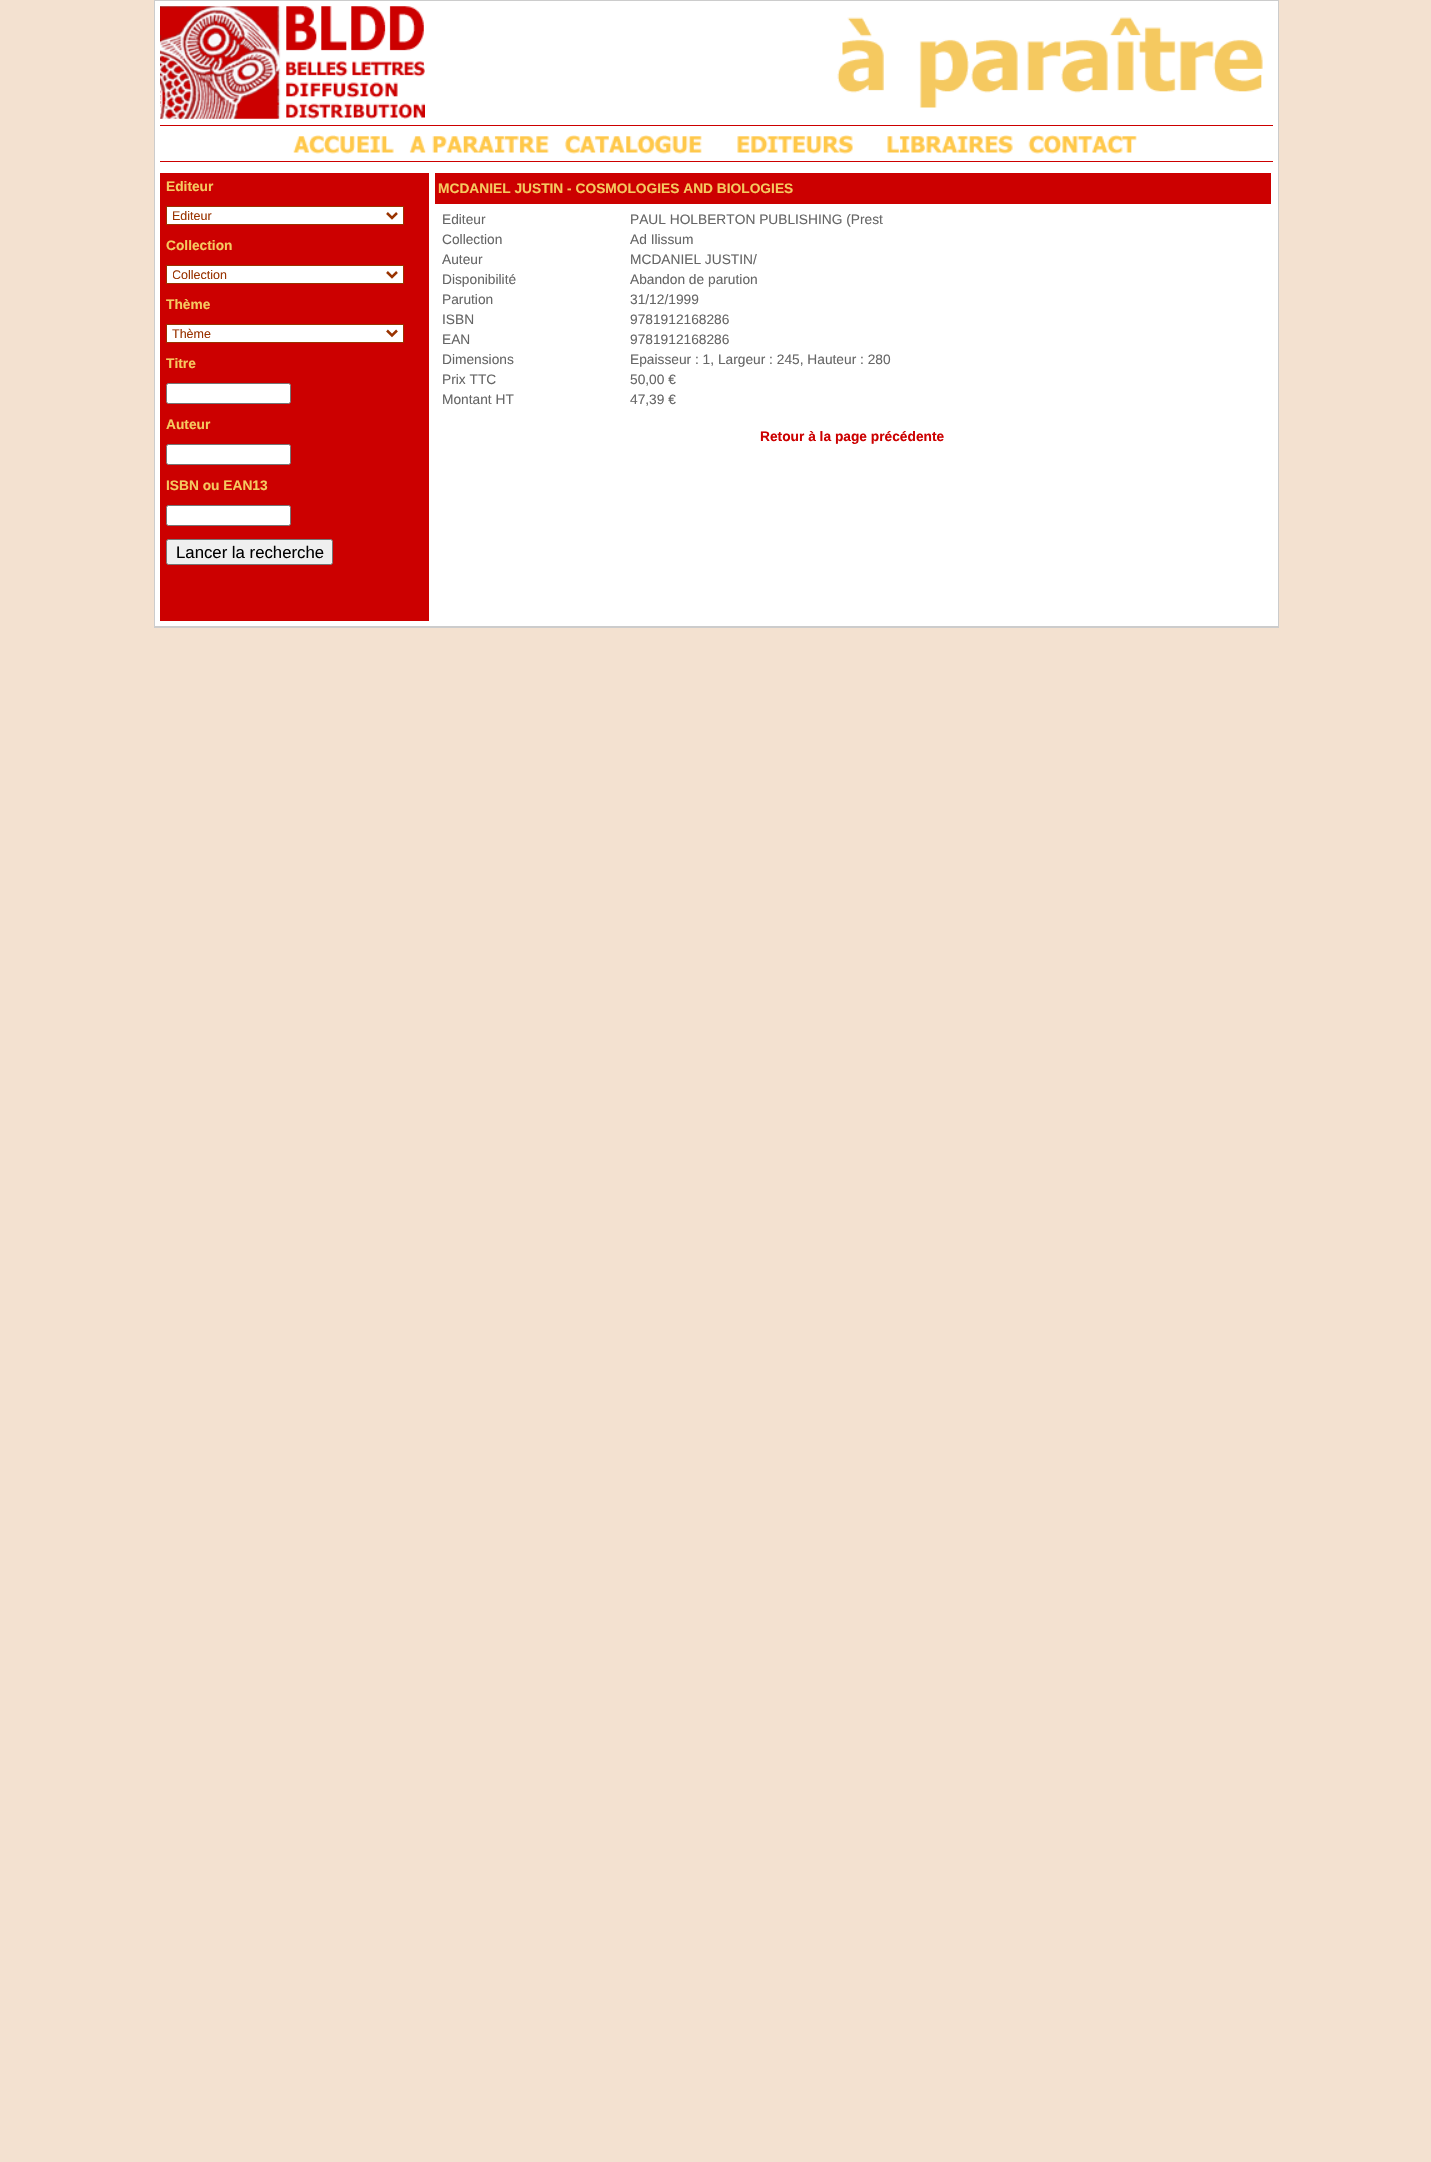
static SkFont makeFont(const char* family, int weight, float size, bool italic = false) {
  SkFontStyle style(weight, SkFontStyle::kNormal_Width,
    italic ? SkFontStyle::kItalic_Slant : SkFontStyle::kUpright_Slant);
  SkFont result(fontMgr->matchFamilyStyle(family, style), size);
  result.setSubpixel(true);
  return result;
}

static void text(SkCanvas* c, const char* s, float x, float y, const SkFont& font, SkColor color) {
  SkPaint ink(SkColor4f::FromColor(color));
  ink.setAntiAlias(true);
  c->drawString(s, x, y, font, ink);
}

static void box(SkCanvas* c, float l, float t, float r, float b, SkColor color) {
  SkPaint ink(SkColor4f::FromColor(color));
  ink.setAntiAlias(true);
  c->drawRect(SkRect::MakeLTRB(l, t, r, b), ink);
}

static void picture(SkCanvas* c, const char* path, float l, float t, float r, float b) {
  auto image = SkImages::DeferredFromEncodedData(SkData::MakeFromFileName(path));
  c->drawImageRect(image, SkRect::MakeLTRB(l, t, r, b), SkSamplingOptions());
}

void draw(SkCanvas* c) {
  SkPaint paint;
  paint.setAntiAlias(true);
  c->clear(0xfff3e1d0);
  box(c, 154, 0, 1279, 628, 0xffcccccc);
  box(c, 155, 1, 1278, 626, 0xffffffff);
  picture(c, "img_01.png", 160, 6, 425, 119);
  picture(c, "img_02.png", 837, 17, 1263, 108);
  box(c, 160, 125, 1273, 126, 0xffcc0000);
  picture(c, "img_03.png", 293, 135, 394, 154);
  picture(c, "img_04.png", 409, 136, 549, 153);
  picture(c, "img_05.png", 564, 135, 702, 154);
  picture(c, "img_06.png", 737, 135, 853, 154);
  picture(c, "img_07.png", 887, 135, 1013, 154);
  picture(c, "img_08.png", 1028, 135, 1137, 154);
  box(c, 160, 161, 1273, 162, 0xffcc0000);
  box(c, 160, 173, 429, 621, 0xffcc0000);
  SkFont face1 = makeFont("Liberation Sans", 700, 13.75f);
  text(c, "Editeur", 166, 191, face1, 0xfff5c960);
  paint.setColor(0xffffffff);
  c->drawRect(SkRect::MakeLTRB(166.5f, 206.5f, 403.5f, 224.5f), paint);
  paint.setStyle(SkPaint::kStroke_Style);
  paint.setStrokeWidth(1);
  paint.setColor(0xff993300);
  c->drawRect(SkRect::MakeLTRB(166.5f, 206.5f, 403.5f, 224.5f), paint);
  paint.setStrokeWidth(2.5f);
  c->drawPath(SkPathBuilder().moveTo(387, 213).lineTo(392, 218).lineTo(397, 213).detach(), paint);
  c->save();
  c->clipRect(SkRect::MakeLTRB(173, 208, 383, 224));
  SkFont face2 = makeFont("Liberation Sans", 400, 12.5f);
  text(c, "Editeur", 172, 220, face2, 0xff993300);
  c->restore();
  text(c, "Collection", 166, 250, face1, 0xfff5c960);
  paint.setStyle(SkPaint::kFill_Style);
  paint.setColor(0xffffffff);
  c->drawRect(SkRect::MakeLTRB(166.5f, 265.5f, 403.5f, 283.5f), paint);
  paint.setStyle(SkPaint::kStroke_Style);
  paint.setStrokeWidth(1);
  paint.setColor(0xff993300);
  c->drawRect(SkRect::MakeLTRB(166.5f, 265.5f, 403.5f, 283.5f), paint);
  paint.setStrokeWidth(2.5f);
  c->drawPath(SkPathBuilder().moveTo(387, 272).lineTo(392, 277).lineTo(397, 272).detach(), paint);
  c->save();
  c->clipRect(SkRect::MakeLTRB(173, 266, 383, 283));
  text(c, "Collection", 172, 279, face2, 0xff993300);
  c->restore();
  text(c, "Thème", 166, 309, face1, 0xfff5c960);
  paint.setStyle(SkPaint::kFill_Style);
  paint.setColor(0xffffffff);
  c->drawRect(SkRect::MakeLTRB(166.5f, 324.5f, 403.5f, 342.5f), paint);
  paint.setStyle(SkPaint::kStroke_Style);
  paint.setStrokeWidth(1);
  paint.setColor(0xff993300);
  c->drawRect(SkRect::MakeLTRB(166.5f, 324.5f, 403.5f, 342.5f), paint);
  paint.setStrokeWidth(2.5f);
  c->drawPath(SkPathBuilder().moveTo(387, 330.5f).lineTo(392, 335.5f).lineTo(397, 330.5f).detach(), paint);
  text(c, "Thème", 172, 338, face2, 0xff993300);
  text(c, "Titre", 166, 368, face1, 0xfff5c960);
  paint.setStyle(SkPaint::kFill_Style);
  paint.setColor(0xffffffff);
  c->drawRoundRect(SkRect::MakeLTRB(166.5f, 383.5f, 290.5f, 403.5f), 2, 2, paint);
  paint.setStyle(SkPaint::kStroke_Style);
  paint.setStrokeWidth(1);
  paint.setColor(0xff767676);
  c->drawRoundRect(SkRect::MakeLTRB(166.5f, 383.5f, 290.5f, 403.5f), 2, 2, paint);
  text(c, "Auteur", 166, 429, face1, 0xfff5c960);
  paint.setStyle(SkPaint::kFill_Style);
  paint.setColor(0xffffffff);
  c->drawRoundRect(SkRect::MakeLTRB(166.5f, 444.5f, 290.5f, 464.5f), 2, 2, paint);
  paint.setStyle(SkPaint::kStroke_Style);
  paint.setColor(0xff767676);
  c->drawRoundRect(SkRect::MakeLTRB(166.5f, 444.5f, 290.5f, 464.5f), 2, 2, paint);
  text(c, "ISBN ou EAN13", 166, 490, face1, 0xfff5c960);
  paint.setStyle(SkPaint::kFill_Style);
  paint.setColor(0xffffffff);
  c->drawRoundRect(SkRect::MakeLTRB(166.5f, 505.5f, 290.5f, 525.5f), 2, 2, paint);
  paint.setStyle(SkPaint::kStroke_Style);
  paint.setColor(0xff767676);
  c->drawRoundRect(SkRect::MakeLTRB(166.5f, 505.5f, 290.5f, 525.5f), 2, 2, paint);
  paint.setStyle(SkPaint::kFill_Style);
  paint.setColor(0xffefefef);
  c->drawRoundRect(SkRect::MakeLTRB(166.5f, 539.5f, 332.5f, 564.5f), 2, 2, paint);
  paint.setStyle(SkPaint::kStroke_Style);
  paint.setColor(0xff767676);
  c->drawRoundRect(SkRect::MakeLTRB(166.5f, 539.5f, 332.5f, 564.5f), 2, 2, paint);
  SkFont face3 = makeFont("Liberation Sans", 400, 16.75f);
  text(c, "Lancer la recherche", 176, 558, face3, 0xff000000);
  box(c, 435, 173, 1271, 204, 0xffcc0000);
  text(c, "MCDANIEL JUSTIN - COSMOLOGIES AND BIOLOGIES", 438, 193, face1, 0xfff5c960);
  SkFont face4 = makeFont("Liberation Sans", 400, 13.75f);
  text(c, "Editeur", 442, 224, face4, 0xff666666);
  text(c, "PAUL HOLBERTON PUBLISHING (Prest", 630, 224, face4, 0xff666666);
  text(c, "Collection", 442, 244, face4, 0xff666666);
  text(c, "Ad Ilissum", 630, 244, face4, 0xff666666);
  text(c, "Auteur", 442, 264, face4, 0xff666666);
  text(c, "MCDANIEL JUSTIN/", 630, 264, face4, 0xff666666);
  text(c, "Disponibilité", 442, 284, face4, 0xff666666);
  text(c, "Abandon de parution", 630, 284, face4, 0xff666666);
  text(c, "Parution", 442, 304, face4, 0xff666666);
  text(c, "31/12/1999", 630, 304, face4, 0xff666666);
  text(c, "ISBN", 442, 324, face4, 0xff666666);
  text(c, "9781912168286", 630, 324, face4, 0xff666666);
  text(c, "EAN", 442, 344, face4, 0xff666666);
  text(c, "9781912168286", 630, 344, face4, 0xff666666);
  text(c, "Dimensions", 442, 364, face4, 0xff666666);
  text(c, "Epaisseur : 1, Largeur : 245, Hauteur : 280", 630, 364, face4, 0xff666666);
  text(c, "Prix TTC", 442, 384, face4, 0xff666666);
  text(c, "50,00 €", 630, 384, face4, 0xff666666);
  text(c, "Montant HT", 442, 404, face4, 0xff666666);
  text(c, "47,39 €", 630, 404, face4, 0xff666666);
  text(c, "Retour à la page précédente", 760, 441, face1, 0xffcc0000);
}
